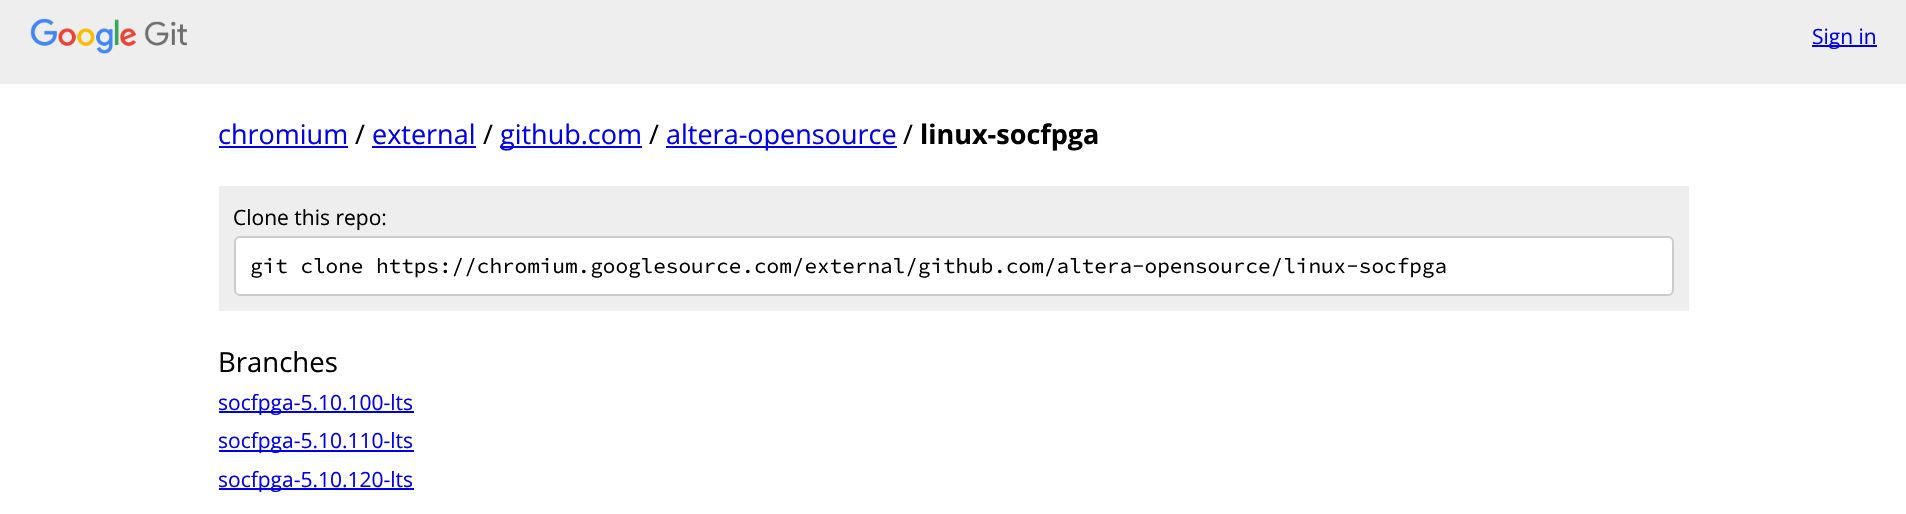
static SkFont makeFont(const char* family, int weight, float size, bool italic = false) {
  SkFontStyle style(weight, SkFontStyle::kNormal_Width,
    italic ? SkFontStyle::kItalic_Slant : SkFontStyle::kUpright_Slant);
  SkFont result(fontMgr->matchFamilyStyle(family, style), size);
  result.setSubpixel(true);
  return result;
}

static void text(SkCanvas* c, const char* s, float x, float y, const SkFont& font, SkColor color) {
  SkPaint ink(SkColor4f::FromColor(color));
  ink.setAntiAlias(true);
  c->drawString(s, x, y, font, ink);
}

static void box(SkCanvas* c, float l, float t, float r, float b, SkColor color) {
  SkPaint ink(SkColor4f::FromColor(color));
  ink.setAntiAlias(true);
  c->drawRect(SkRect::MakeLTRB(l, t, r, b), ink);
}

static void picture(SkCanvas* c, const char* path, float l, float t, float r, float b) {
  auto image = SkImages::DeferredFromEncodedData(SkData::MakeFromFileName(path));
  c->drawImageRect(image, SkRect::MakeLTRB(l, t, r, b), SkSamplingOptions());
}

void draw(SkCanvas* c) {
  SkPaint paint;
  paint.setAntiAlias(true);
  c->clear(0xffffffff);
  box(c, 0, 0, 1906, 84, 0xffeeeeee);
  picture(c, "img_01.png", 30, 18, 187, 54);
  box(c, 1812, 45, 1877, 47, 0xff0000ee);
  SkFont face1 = makeFont("Open Sans", 400, 21);
  text(c, "Sign in", 1812, 44, face1, 0xff0000ee);
  SkFont face2 = makeFont("Open Sans", 400, 27);
  text(c, "chromium", 218, 144, face2, 0xff0000ee);
  box(c, 219, 146, 348, 148, 0xff0000ee);
  text(c, "/", 355, 144, face2, 0xff000000);
  text(c, "external", 372, 144, face2, 0xff0000ee);
  box(c, 372, 146, 476, 148, 0xff0000ee);
  text(c, "/", 483, 144, face2, 0xff000000);
  box(c, 500, 146, 642, 148, 0xff0000ee);
  text(c, "github.com", 500, 144, face2, 0xff0000ee);
  text(c, "/", 649, 144, face2, 0xff000000);
  box(c, 666, 146, 897, 148, 0xff0000ee);
  text(c, "altera-opensource", 666, 144, face2, 0xff0000ee);
  text(c, "/", 903, 144, face2, 0xff000000);
  SkFont face3 = makeFont("Open Sans", 700, 27);
  text(c, "linux-socfpga", 920, 144, face3, 0xff000000);
  box(c, 219, 186, 1689, 311, 0xffeeeeee);
  text(c, "Clone this repo:", 233, 225, face1, 0xff000000);
  paint.setColor(0xffffffff);
  c->drawRoundRect(SkRect::MakeLTRB(235, 237, 1673, 295), 5, 5, paint);
  paint.setStyle(SkPaint::kStroke_Style);
  paint.setStrokeWidth(2);
  paint.setColor(0xffcccccc);
  c->drawRoundRect(SkRect::MakeLTRB(235, 237, 1673, 295), 5, 5, paint);
  SkFont face4 = makeFont("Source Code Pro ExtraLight", 200, 21);
  text(c, "git clone https://chromium.googlesource.com/external/github.com/altera-opensource/linux-socfpga", 250, 273, face4, 0xff000000);
  SkFont face5 = makeFont("Open Sans", 400, 27.5f);
  text(c, "Branches", 218, 372, face5, 0xff000000);
  box(c, 219, 411, 414, 413, 0xff0000ee);
  text(c, "socfpga-5.10.100-lts", 218, 410, face1, 0xff0000ee);
  box(c, 219, 450, 414, 452, 0xff0000ee);
  text(c, "socfpga-5.10.110-lts", 218, 448, face1, 0xff0000ee);
  box(c, 219, 488, 414, 490, 0xff0000ee);
  text(c, "socfpga-5.10.120-lts", 218, 487, face1, 0xff0000ee);
}
